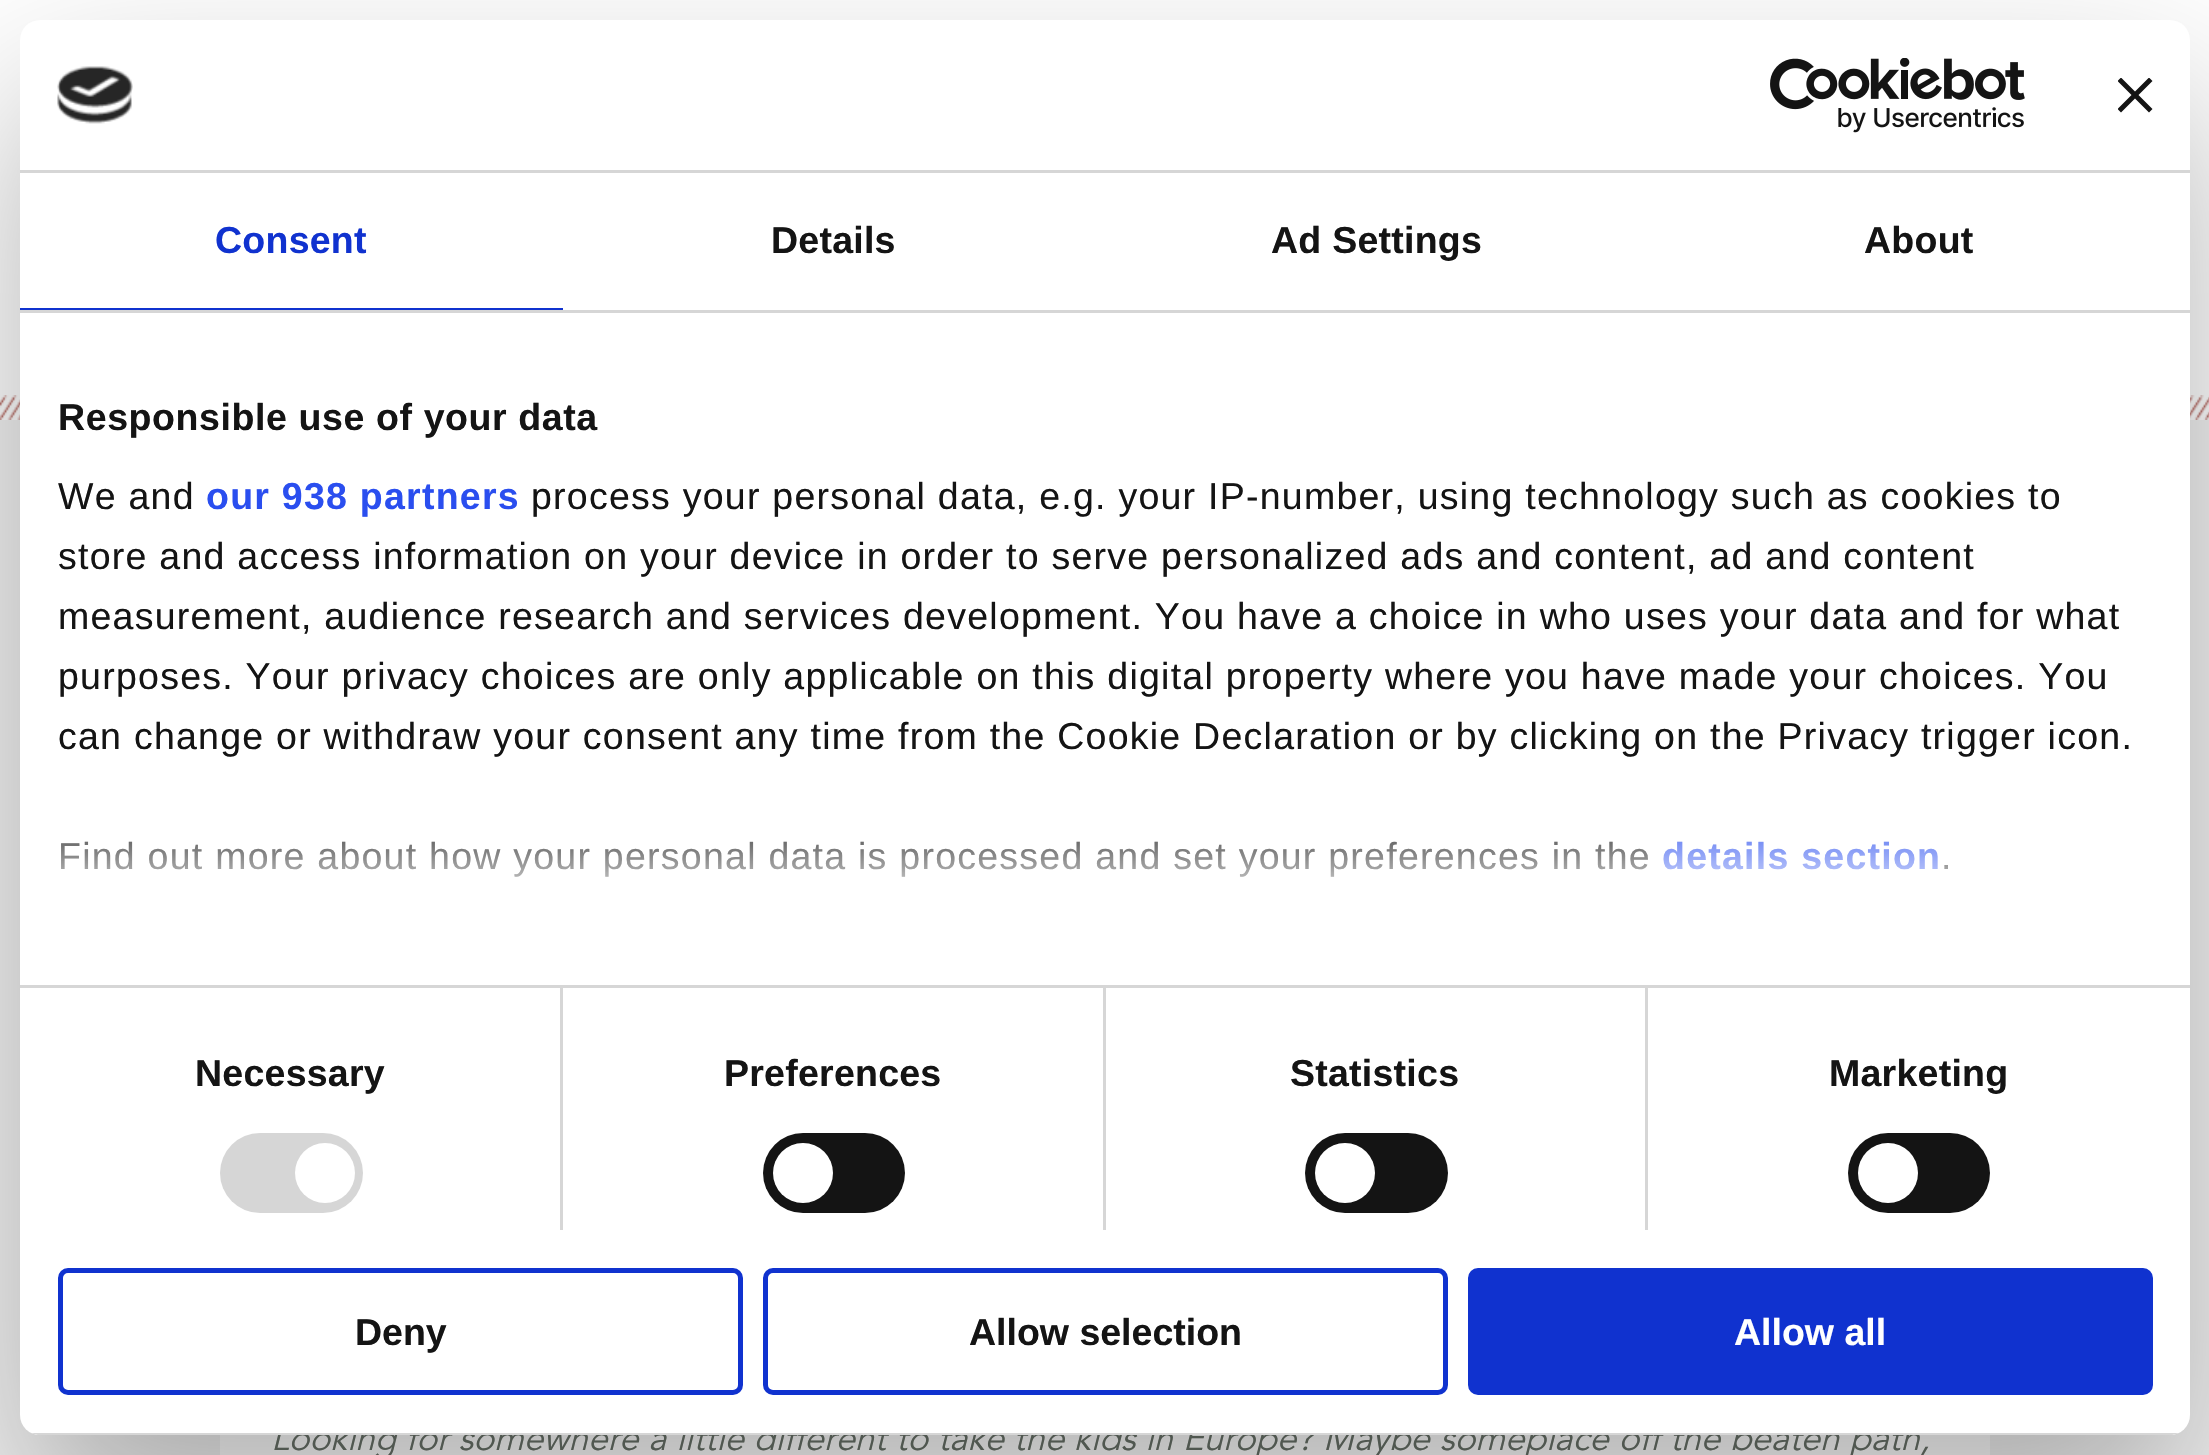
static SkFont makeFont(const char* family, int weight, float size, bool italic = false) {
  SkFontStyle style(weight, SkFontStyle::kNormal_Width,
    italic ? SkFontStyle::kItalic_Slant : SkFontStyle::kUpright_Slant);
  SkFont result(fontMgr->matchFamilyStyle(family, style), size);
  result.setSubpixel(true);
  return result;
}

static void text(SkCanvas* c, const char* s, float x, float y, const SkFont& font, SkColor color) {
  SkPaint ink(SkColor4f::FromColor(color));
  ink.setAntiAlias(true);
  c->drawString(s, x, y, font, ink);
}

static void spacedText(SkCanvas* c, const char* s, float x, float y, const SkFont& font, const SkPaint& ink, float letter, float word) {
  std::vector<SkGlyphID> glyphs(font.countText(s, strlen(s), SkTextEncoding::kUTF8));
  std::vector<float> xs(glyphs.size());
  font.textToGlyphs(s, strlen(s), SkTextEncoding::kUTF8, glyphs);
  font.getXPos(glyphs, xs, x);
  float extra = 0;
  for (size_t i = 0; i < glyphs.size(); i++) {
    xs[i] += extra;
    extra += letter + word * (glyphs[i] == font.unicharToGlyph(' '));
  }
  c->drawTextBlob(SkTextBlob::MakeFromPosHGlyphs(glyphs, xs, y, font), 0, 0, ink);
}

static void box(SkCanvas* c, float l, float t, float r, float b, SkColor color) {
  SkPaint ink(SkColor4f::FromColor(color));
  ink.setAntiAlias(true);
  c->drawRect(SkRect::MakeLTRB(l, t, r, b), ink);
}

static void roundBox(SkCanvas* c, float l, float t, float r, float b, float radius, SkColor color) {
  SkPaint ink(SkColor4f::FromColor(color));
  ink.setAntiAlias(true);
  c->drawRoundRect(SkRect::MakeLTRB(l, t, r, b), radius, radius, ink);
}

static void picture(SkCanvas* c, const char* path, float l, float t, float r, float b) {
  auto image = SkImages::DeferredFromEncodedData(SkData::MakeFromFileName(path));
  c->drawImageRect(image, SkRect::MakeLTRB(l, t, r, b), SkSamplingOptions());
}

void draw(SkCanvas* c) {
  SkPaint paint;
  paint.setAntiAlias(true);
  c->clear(0xfff3f3f3);
  box(c, 0, 0, 2209, 420, 0xffffffff);
  picture(c, "img_03.png", 0, 395, 2209, 420);
  box(c, 220, 1435, 1990, 1455, 0xffffffff);
  paint.setColor(0x4d000000);
  paint.setMaskFilter(SkMaskFilter::MakeBlur(kNormal_SkBlurStyle, 85));
  c->drawRoundRect(SkRect::MakeLTRB(20, 100, 2190, 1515), 20, 20, paint);
  paint.setMaskFilter(nullptr);
  SkFont face1 = makeFont("Avenir", 400, 35, true);
  text(c, "Looking for somewhere a little different to take the kids in Europe? Maybe someplace off the beaten path,", 271, 1450, face1, 0xff505750);
  roundBox(c, 20, 20, 2190, 1435, 20, 0xffffffff);
  box(c, 20, 170, 2190, 173, 0xffd6d6d6);
  picture(c, "img_01.png", 57, 66, 133, 124);
  picture(c, "img_02.png", 1770, 58, 2025, 133);
  c->save();
  c->clipRect(SkRect::MakeLTRB(2118, 78, 2153, 113));
  paint.setColor(0xff141414);
  c->drawPath(SkPathBuilder().moveTo(2152.5f, 81).lineTo(2149, 77.5f).lineTo(2135, 91.5f).lineTo(2121, 77.5f).lineTo(2117.5f, 81).lineTo(2131.5f, 95).lineTo(2117.5f, 109).lineTo(2121, 112.5f).lineTo(2135, 98.5f).lineTo(2149, 112.5f).lineTo(2152.5f, 109).lineTo(2138.5f, 95).close().detach(), paint);
  c->restore();
  box(c, 20, 310, 2190, 313, 0xffd6d6d6);
  box(c, 20, 308, 563, 310, 0xff1032cf);
  SkFont face2 = makeFont("Liberation Sans", 700, 37.5f);
  paint.setColor(0xff1032cf);
  spacedText(c, "Consent", 215, 253, face2, paint, 0.25f, 0);
  paint.setColor(0xff141414);
  spacedText(c, "Details", 771, 253, face2, paint, 0.25f, 0);
  spacedText(c, "Ad Settings", 1271, 253, face2, paint, 0.25f, 0);
  spacedText(c, "About", 1864, 253, face2, paint, 0.25f, 0);
  box(c, 20, 985, 2190, 988, 0xffd6d6d6);
  spacedText(c, "Responsible use of your data", 58, 430, face2, paint, 0.6f, 0);
  SkFont face3 = makeFont("Liberation Sans", 400, 37.5f);
  spacedText(c, "We and", 58, 509, face3, paint, 1.25f, 0);
  paint.setColor(0xff2a4eef);
  spacedText(c, "our 938 partners", 206, 509, face2, paint, 1.25f, 0);
  paint.setColor(0xff141414);
  spacedText(c, "process your personal data, e.g. your IP-number, using technology such as cookies to", 531, 509, face3, paint, 1.25f, 0);
  spacedText(c, "store and access information on your device in order to serve personalized ads and content, ad and content", 58, 569, face3, paint, 1.25f, 0);
  spacedText(c, "measurement, audience research and services development. You have a choice in who uses your data and for what", 58, 629, face3, paint, 1.25f, 0);
  spacedText(c, "purposes. Your privacy choices are only applicable on this digital property where you have made your choices. You", 58, 689, face3, paint, 1.25f, 0);
  spacedText(c, "can change or withdraw your consent any time from the Cookie Declaration or by clicking on the Privacy trigger icon.", 58, 749, face3, paint, 1.25f, 0);
  spacedText(c, "Find out more about how your personal data is processed and set your preferences in the", 58, 869, face3, paint, 1.25f, 0);
  paint.setColor(0xff2a4eef);
  spacedText(c, "details section", 1662, 869, face2, paint, 1.25f, 0);
  paint.setColor(0xff141414);
  spacedText(c, ".", 1941, 869, face3, paint, 1.25f, 0);
  {
    const SkColor colors[] = {0xffffffff, 0xccffffff, 0x00ffffff};
    const float stops[] = {0, 0.5f, 1};
    const SkPoint ends[] = {{1089, 985}, {1089, 798}};
    paint.setShader(SkGradientShader::MakeLinear(ends, colors, stops, 3, SkTileMode::kClamp));
    paint.setAlpha(255);
  }
  c->drawRect(SkRect::MakeLTRB(60, 841, 1949, 877), paint);
  box(c, 560, 988, 563, 1230, 0xffd6d6d6);
  paint.setShader(nullptr);
  paint.setColor(0xff141414);
  spacedText(c, "Necessary", 195, 1086, face2, paint, 0.25f, 0);
  roundBox(c, 220, 1133, 363, 1213, 40, 0xffd6d6d6);
  paint.setColor(0xffffffff);
  c->drawCircle(325, 1173, 30, paint);
  box(c, 1103, 988, 1106, 1230, 0xffd6d6d6);
  paint.setColor(0xff141414);
  spacedText(c, "Preferences", 724, 1086, face2, paint, 0.25f, 0);
  roundBox(c, 763, 1133, 905, 1213, 40, 0xff141414);
  paint.setColor(0xffffffff);
  c->drawCircle(803, 1173, 30, paint);
  box(c, 1645, 988, 1648, 1230, 0xffd6d6d6);
  paint.setColor(0xff141414);
  spacedText(c, "Statistics", 1290, 1086, face2, paint, 0.25f, 0);
  roundBox(c, 1305, 1133, 1448, 1213, 40, 0xff141414);
  paint.setColor(0xffffffff);
  c->drawCircle(1345, 1173, 30, paint);
  paint.setColor(0xff141414);
  spacedText(c, "Marketing", 1829, 1086, face2, paint, 0.25f, 0);
  roundBox(c, 1848, 1133, 1990, 1213, 40, 0xff141414);
  paint.setColor(0xffffffff);
  c->drawCircle(1888, 1173, 30, paint);
  c->save();
  c->clipPath(SkPathBuilder().moveTo(40, 20).lineTo(2170, 20).cubicTo(2181, 20, 2190, 29, 2190, 40).lineTo(2190, 1415).cubicTo(2190, 1426, 2181, 1435, 2170, 1435).lineTo(40, 1435).cubicTo(29, 1435, 20, 1426, 20, 1415).lineTo(20, 40).cubicTo(20, 29, 29, 20, 40, 20).close().detach(), true);
  box(c, 31, 1433, 2179, 1435, 0xffd6d6d6);
  c->restore();
  paint.setStyle(SkPaint::kStroke_Style);
  paint.setStrokeWidth(5);
  paint.setColor(0xff1032cf);
  c->drawRoundRect(SkRect::MakeLTRB(60.5f, 1270.5f, 740.5f, 1392.5f), 7.5f, 7.5f, paint);
  text(c, "Deny", 355, 1345, face2, 0xff141414);
  c->drawRoundRect(SkRect::MakeLTRB(765.5f, 1270.5f, 1445.5f, 1392.5f), 7.5f, 7.5f, paint);
  text(c, "Allow selection", 969, 1345, face2, 0xff141414);
  paint.setStyle(SkPaint::kFill_Style);
  c->drawRoundRect(SkRect::MakeLTRB(1470.5f, 1270.5f, 2150.5f, 1392.5f), 7.5f, 7.5f, paint);
  paint.setStyle(SkPaint::kStroke_Style);
  c->drawRoundRect(SkRect::MakeLTRB(1470.5f, 1270.5f, 2150.5f, 1392.5f), 7.5f, 7.5f, paint);
  text(c, "Allow all", 1734, 1345, face2, 0xffffffff);
}
